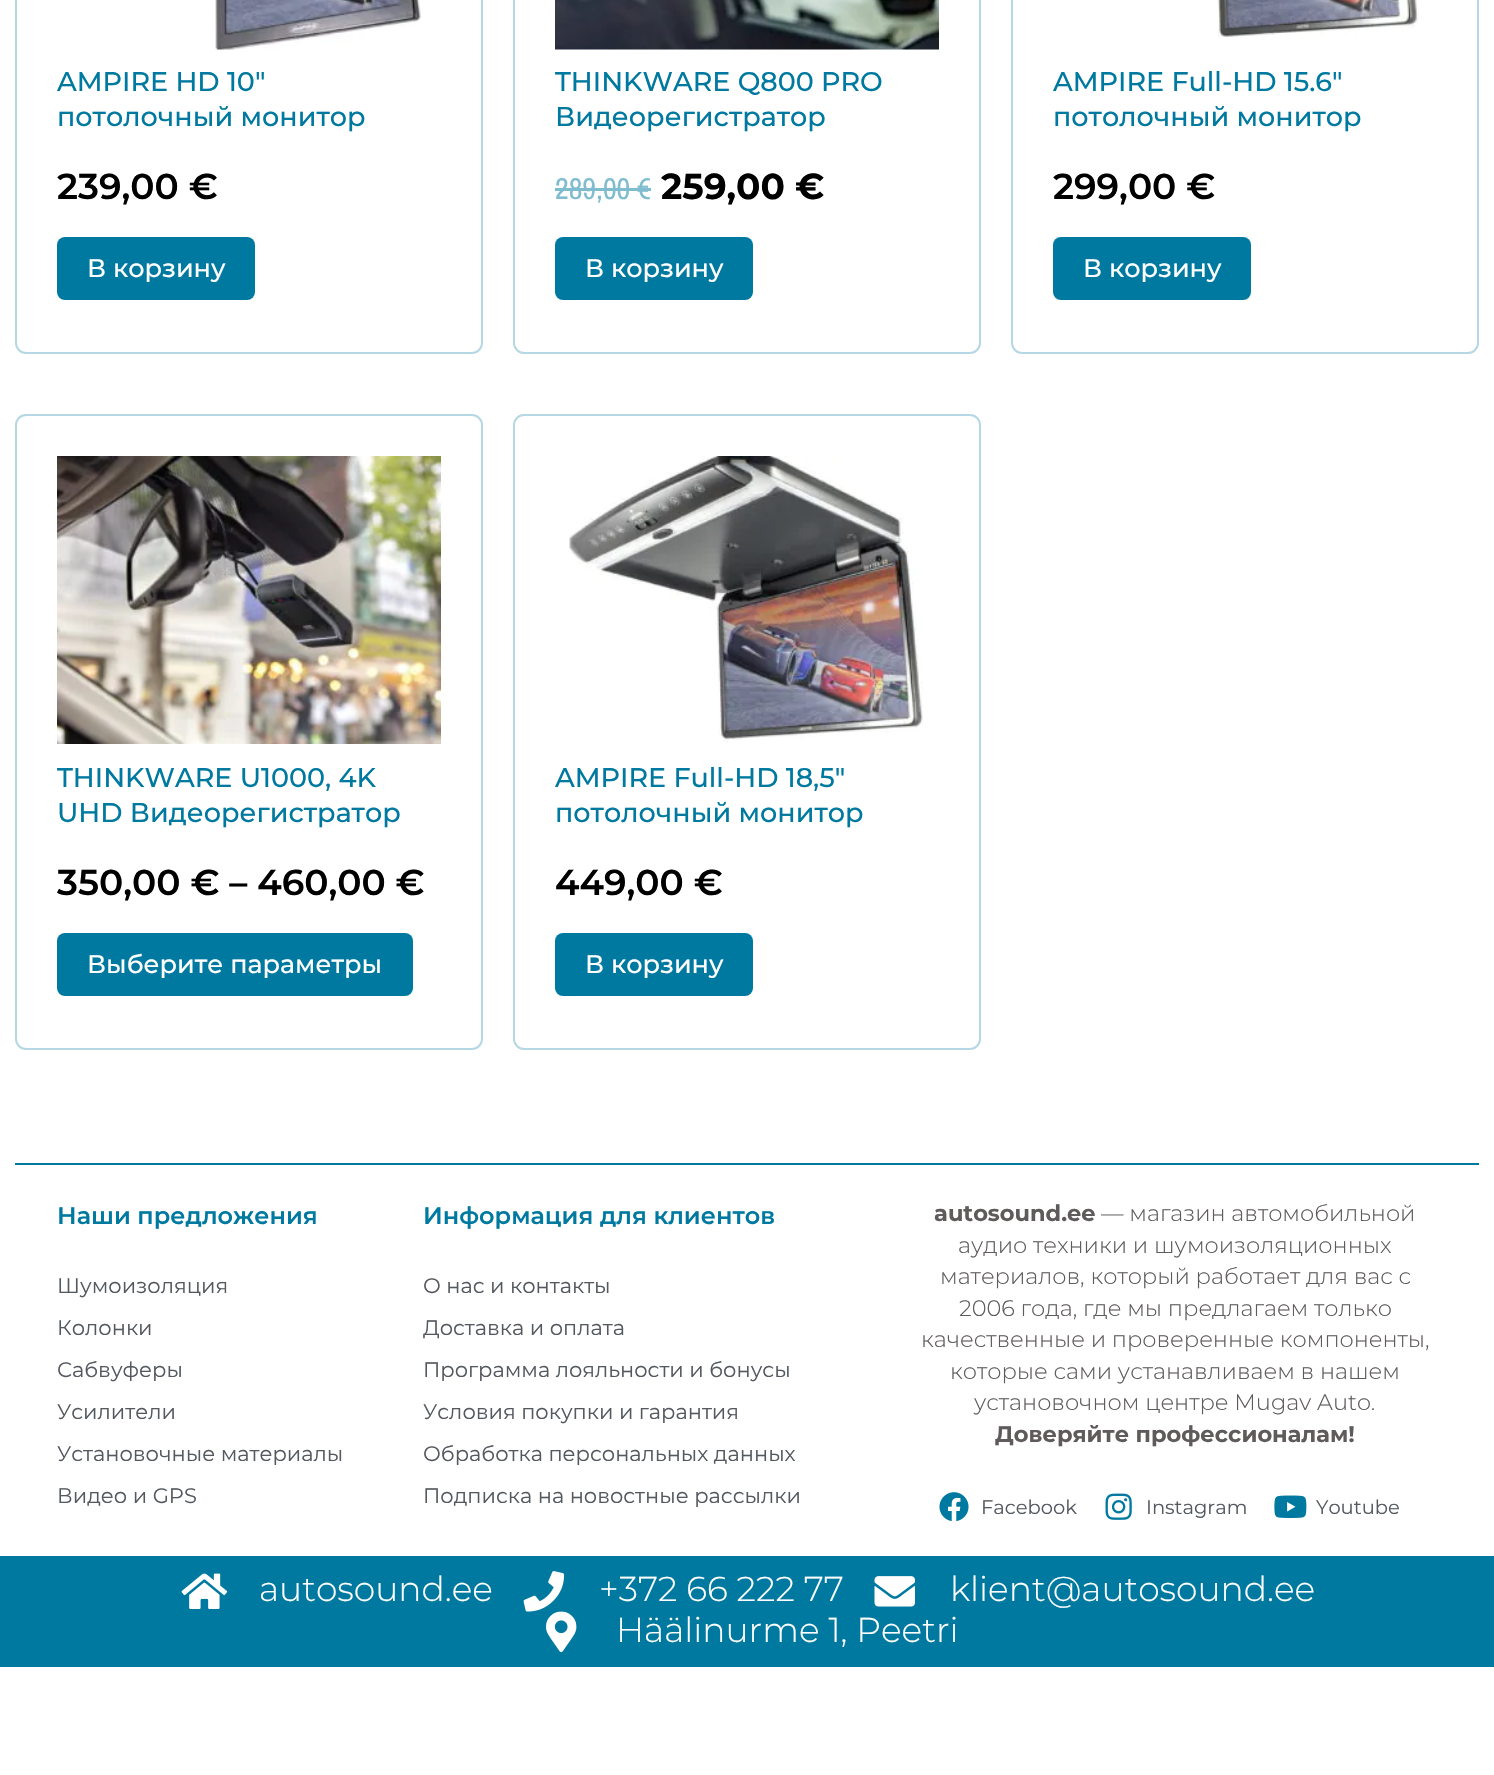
static SkFont makeFont(const char* family, int weight, float size, bool italic = false) {
  SkFontStyle style(weight, SkFontStyle::kNormal_Width,
    italic ? SkFontStyle::kItalic_Slant : SkFontStyle::kUpright_Slant);
  SkFont result(fontMgr->matchFamilyStyle(family, style), size);
  result.setSubpixel(true);
  return result;
}

static void text(SkCanvas* c, const char* s, float x, float y, const SkFont& font, SkColor color) {
  SkPaint ink(SkColor4f::FromColor(color));
  ink.setAntiAlias(true);
  c->drawString(s, x, y, font, ink);
}

static void box(SkCanvas* c, float l, float t, float r, float b, SkColor color) {
  SkPaint ink(SkColor4f::FromColor(color));
  ink.setAntiAlias(true);
  c->drawRect(SkRect::MakeLTRB(l, t, r, b), ink);
}

static void roundBox(SkCanvas* c, float l, float t, float r, float b, float radius, SkColor color) {
  SkPaint ink(SkColor4f::FromColor(color));
  ink.setAntiAlias(true);
  c->drawRoundRect(SkRect::MakeLTRB(l, t, r, b), radius, radius, ink);
}

static void picture(SkCanvas* c, const char* path, float l, float t, float r, float b) {
  auto image = SkImages::DeferredFromEncodedData(SkData::MakeFromFileName(path));
  c->drawImageRect(image, SkRect::MakeLTRB(l, t, r, b), SkSamplingOptions());
}

void draw(SkCanvas* c) {
  SkPaint paint;
  paint.setAntiAlias(true);
  c->clear(0xffffffff);
  paint.setStyle(SkPaint::kStroke_Style);
  paint.setStrokeWidth(2);
  paint.setColor(0xffb5d8e4);
  c->drawRoundRect(SkRect::MakeLTRB(16, -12, 482, 353), 10, 10, paint);
  picture(c, "img_01.png", 215, 0, 421, 50);
  SkFont face1 = makeFont("Montserrat", 500, 27);
  text(c, "AMPIRE HD 10″", 57, 91, face1, 0xff0079a1);
  text(c, "потолочный монитор", 57, 126, face1, 0xff0079a1);
  SkFont face2 = makeFont("Montserrat", 600, 36);
  text(c, "239,00 €", 57, 199, face2, 0xff000000);
  roundBox(c, 57, 237, 255, 300, 8, 0xff0079a1);
  SkFont face3 = makeFont("Montserrat", 500, 25.5f);
  text(c, "В корзину", 87, 277, face3, 0xffffffff);
  c->drawRoundRect(SkRect::MakeLTRB(514, -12, 980, 353), 10, 10, paint);
  picture(c, "img_02.png", 555, 0, 939, 50);
  text(c, "THINKWARE Q800 PRO", 555, 91, face1, 0xff0079a1);
  text(c, "Видеорегистратор", 555, 126, face1, 0xff0079a1);
  SkFont face4 = makeFont("Archivo Narrow", 400, 30);
  text(c, "289,00", 555, 199, face4, 0xff80bcd0);
  box(c, 555, 188, 638, 191, 0xff80bcd0);
  text(c, "€", 637, 199, face4, 0xff80bcd0);
  box(c, 638, 188, 651, 191, 0xff80bcd0);
  SkFont face5 = makeFont("Montserrat", 700, 36);
  text(c, "259,00 €", 661, 199, face5, 0xff000000);
  roundBox(c, 555, 237, 753, 300, 8, 0xff0079a1);
  text(c, "В корзину", 585, 277, face3, 0xffffffff);
  c->drawRoundRect(SkRect::MakeLTRB(1012, -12, 1478, 353), 10, 10, paint);
  picture(c, "img_03.png", 1217, 0, 1419, 38);
  text(c, "AMPIRE Full-HD 15.6″", 1053, 91, face1, 0xff0079a1);
  text(c, "потолочный монитор", 1053, 126, face1, 0xff0079a1);
  text(c, "299,00 €", 1053, 199, face2, 0xff000000);
  roundBox(c, 1053, 237, 1251, 300, 8, 0xff0079a1);
  text(c, "В корзину", 1083, 277, face3, 0xffffffff);
  c->drawRoundRect(SkRect::MakeLTRB(16, 415, 482, 1049), 10, 10, paint);
  picture(c, "img_04.png", 57, 456, 441, 744);
  text(c, "THINKWARE U1000, 4K", 57, 787, face1, 0xff0079a1);
  text(c, "UHD Видеорегистратор", 57, 822, face1, 0xff0079a1);
  text(c, "350,00 € – 460,00 €", 57, 895, face2, 0xff000000);
  roundBox(c, 57, 933, 413, 996, 8, 0xff0079a1);
  text(c, "Выберите параметры", 87, 973, face3, 0xffffffff);
  c->drawRoundRect(SkRect::MakeLTRB(514, 415, 980, 1049), 10, 10, paint);
  picture(c, "img_05.png", 569, 456, 923, 743);
  text(c, "AMPIRE Full-HD 18,5″", 555, 787, face1, 0xff0079a1);
  text(c, "потолочный монитор", 555, 822, face1, 0xff0079a1);
  text(c, "449,00 €", 555, 895, face2, 0xff000000);
  roundBox(c, 555, 933, 753, 996, 8, 0xff0079a1);
  text(c, "В корзину", 585, 973, face3, 0xffffffff);
  box(c, 15, 1163, 1479, 1165, 0xff0079a1);
  SkFont face6 = makeFont("Montserrat", 600, 24);
  text(c, "Наши предложения", 57, 1224, face6, 0xff0079a1);
  SkFont face7 = makeFont("Montserrat", 400, 21);
  text(c, "Шумоизоляция", 57, 1293, face7, 0xff54595f);
  text(c, "Колонки", 57, 1335, face7, 0xff54595f);
  text(c, "Сабвуферы", 57, 1377, face7, 0xff54595f);
  text(c, "Усилители", 57, 1419, face7, 0xff54595f);
  text(c, "Установочные материалы", 57, 1461, face7, 0xff54595f);
  text(c, "Видео и GPS", 57, 1503, face7, 0xff54595f);
  text(c, "Информация для клиентов", 423, 1224, face6, 0xff0079a1);
  text(c, "О нас и контакты", 423, 1293, face7, 0xff54595f);
  text(c, "Доставка и оплата", 423, 1335, face7, 0xff54595f);
  text(c, "Программа лояльности и бонусы", 423, 1377, face7, 0xff54595f);
  text(c, "Условия покупки и гарантия", 423, 1419, face7, 0xff54595f);
  text(c, "Обработка персональных данных", 423, 1461, face7, 0xff54595f);
  text(c, "Подписка на новостные рассылки", 423, 1503, face7, 0xff54595f);
  SkFont face8 = makeFont("Montserrat", 700, 22.5f);
  text(c, "autosound.ee", 934, 1221, face8, 0xff5f5b5b);
  SkFont face9 = makeFont("Montserrat", 300, 22.5f);
  text(c, "— магазин автомобильной", 1101, 1221, face9, 0xff5f5b5b);
  text(c, "аудио техники и шумоизоляционных", 958, 1253, face9, 0xff5f5b5b);
  text(c, "материалов, который работает для вас с", 940, 1284, face9, 0xff5f5b5b);
  text(c, "2006 года, где мы предлагаем только", 959, 1316, face9, 0xff5f5b5b);
  text(c, "качественные и проверенные компоненты,", 921, 1347, face9, 0xff5f5b5b);
  text(c, "которые сами устанавливаем в нашем", 950, 1379, face9, 0xff5f5b5b);
  text(c, "установочном центре Mugav Auto.", 974, 1410, face9, 0xff5f5b5b);
  text(c, "Доверяйте профессионалам!", 995, 1442, face8, 0xff5f5b5b);
  picture(c, "img_06.png", 939, 1492, 969, 1522);
  SkFont face10 = makeFont("Montserrat", 400, 19.5f);
  text(c, "Facebook", 981, 1514, face10, 0xff54595f);
  picture(c, "img_07.png", 1105, 1493, 1132, 1520);
  text(c, "Instagram", 1146, 1514, face10, 0xff54595f);
  picture(c, "img_08.png", 1274, 1495, 1307, 1518);
  text(c, "Youtube", 1316, 1514, face10, 0xff54595f);
  box(c, 0, 1556, 1494, 1667, 0xff0079a1);
  picture(c, "img_09.png", 181, 1573, 228, 1609);
  SkFont face11 = makeFont("Montserrat", 300, 34.5f);
  text(c, "autosound.ee", 259, 1601, face11, 0xffffffff);
  picture(c, "img_10.png", 523, 1571, 565, 1612);
  text(c, "+372 66 222 77", 599, 1601, face11, 0xffffffff);
  picture(c, "img_11.png", 874, 1576, 915, 1607);
  text(c, "klient@autosound.ee", 950, 1601, face11, 0xffffffff);
  picture(c, "img_12.png", 546, 1611, 577, 1652);
  text(c, "Häälinurme 1, Peetri", 616, 1642, face11, 0xffffffff);
}
